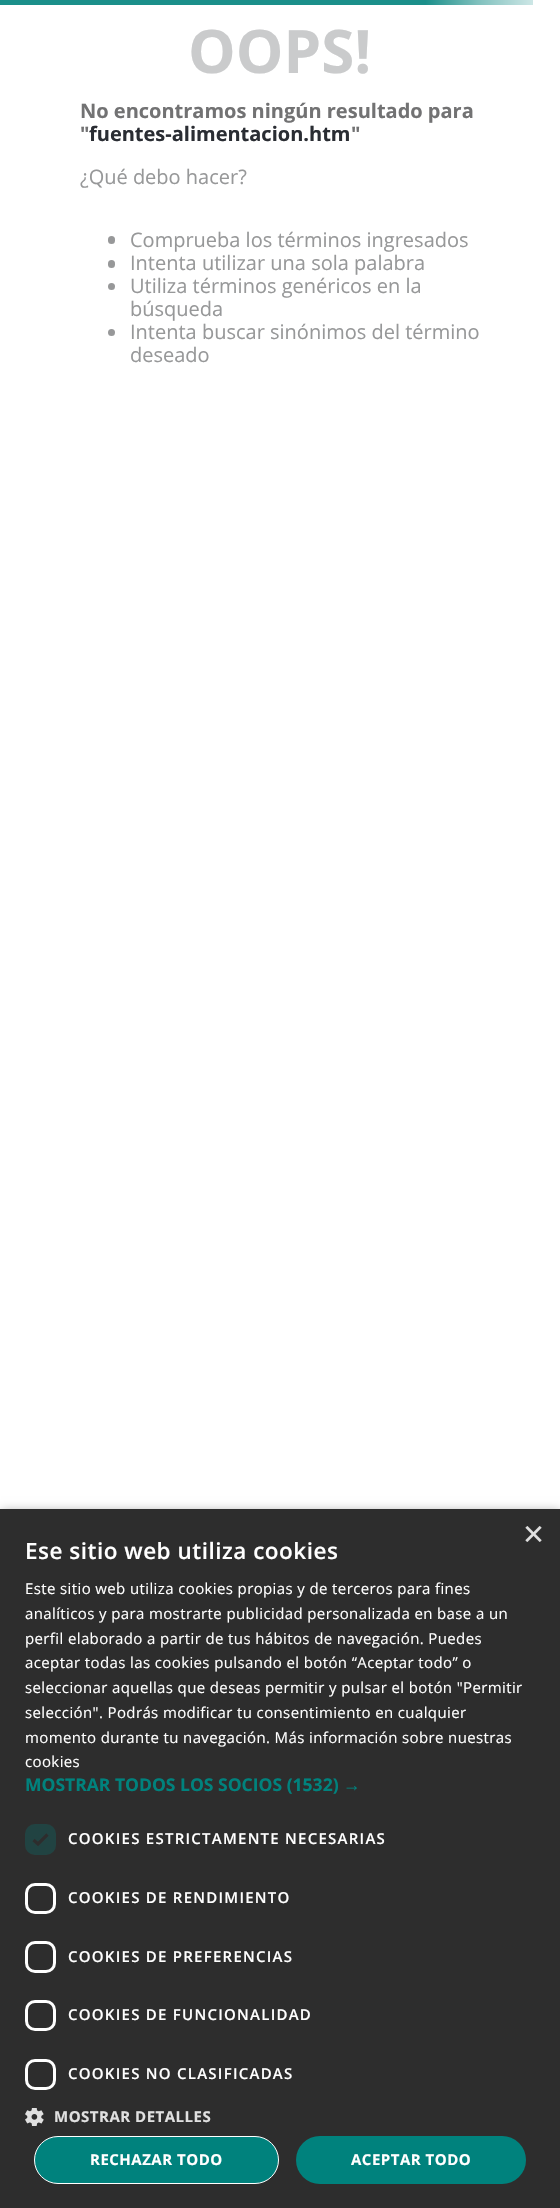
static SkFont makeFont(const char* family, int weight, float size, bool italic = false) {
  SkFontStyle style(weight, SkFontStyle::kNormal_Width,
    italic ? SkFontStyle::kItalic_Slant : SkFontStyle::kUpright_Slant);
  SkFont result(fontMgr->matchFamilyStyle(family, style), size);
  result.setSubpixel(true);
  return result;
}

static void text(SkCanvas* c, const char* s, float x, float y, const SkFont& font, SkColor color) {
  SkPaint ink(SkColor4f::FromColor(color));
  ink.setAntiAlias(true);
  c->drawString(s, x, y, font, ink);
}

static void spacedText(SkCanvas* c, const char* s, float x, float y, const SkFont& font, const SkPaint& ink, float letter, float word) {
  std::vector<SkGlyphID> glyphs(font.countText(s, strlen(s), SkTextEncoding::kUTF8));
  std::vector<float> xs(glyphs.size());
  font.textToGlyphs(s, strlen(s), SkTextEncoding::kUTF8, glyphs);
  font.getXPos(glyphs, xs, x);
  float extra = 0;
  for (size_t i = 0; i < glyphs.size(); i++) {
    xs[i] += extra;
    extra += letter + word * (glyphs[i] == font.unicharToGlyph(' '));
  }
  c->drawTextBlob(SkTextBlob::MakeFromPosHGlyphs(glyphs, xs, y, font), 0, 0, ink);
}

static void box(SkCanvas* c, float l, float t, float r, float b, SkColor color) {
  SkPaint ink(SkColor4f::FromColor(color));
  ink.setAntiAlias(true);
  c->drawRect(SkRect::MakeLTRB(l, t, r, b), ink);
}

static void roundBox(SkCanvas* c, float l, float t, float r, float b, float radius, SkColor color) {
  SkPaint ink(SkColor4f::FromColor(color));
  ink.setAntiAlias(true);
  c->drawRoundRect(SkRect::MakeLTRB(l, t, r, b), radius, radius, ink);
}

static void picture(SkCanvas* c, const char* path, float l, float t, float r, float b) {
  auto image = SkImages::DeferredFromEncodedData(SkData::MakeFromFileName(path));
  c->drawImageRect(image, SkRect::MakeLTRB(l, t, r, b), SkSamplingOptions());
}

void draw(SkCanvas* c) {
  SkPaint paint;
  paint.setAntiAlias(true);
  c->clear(0xffffffff);
  {
    const SkColor colors[] = {0xff1b8f8a, 0xff81c1be, 0xffcce6e5};
    const float stops[] = {0.8f, 0.9f, 1};
    const SkPoint ends[] = {{0, 2.5f}, {532, 2.5f}};
    paint.setShader(SkGradientShader::MakeLinear(ends, colors, stops, 3, SkTileMode::kClamp));
    paint.setAlpha(255);
  }
  c->drawRect(SkRect::MakeLTRB(0, 0, 533, 5), paint);
  SkFont face1 = makeFont("Open Sans", 700, 60);
  text(c, "OOPS!", 188, 73, face1, 0xffcacbcc);
  SkFont face2 = makeFont("Open Sans", 700, 20);
  text(c, "No encontramos ningún resultado para", 80, 118, face2, 0xff727273);
  text(c, "\"", 80, 141, face2, 0xff727273);
  text(c, "fuentes-alimentacion.htm", 89, 141, face2, 0xff2a2d33);
  text(c, "\"", 351, 141, face2, 0xff727273);
  SkFont face3 = makeFont("Open Sans", 400, 20);
  text(c, "¿Qué debo hacer?", 80, 184, face3, 0xff979899);
  roundBox(c, 108, 236, 115, 244, 3.5f, 0xff979899);
  text(c, "Comprueba los términos ingresados", 130, 247, face3, 0xff979899);
  roundBox(c, 108, 260, 115, 268, 3.5f, 0xff979899);
  text(c, "Intenta utilizar una sola palabra", 130, 270, face3, 0xff979899);
  paint.setShader(nullptr);
  paint.setColor(0xff979899);
  c->drawCircle(111.5f, 286.5f, 3.5f, paint);
  text(c, "Utiliza términos genéricos en la", 130, 293, face3, 0xff979899);
  text(c, "búsqueda", 130, 316, face3, 0xff979899);
  c->drawCircle(111.5f, 332.5f, 3.5f, paint);
  text(c, "Intenta buscar sinónimos del término", 130, 339, face3, 0xff979899);
  text(c, "deseado", 130, 362, face3, 0xff979899);
  paint.setColor(0x59000000);
  paint.setMaskFilter(SkMaskFilter::MakeBlur(kNormal_SkBlurStyle, 5));
  c->drawRect(SkRect::MakeLTRB(1, 1511, 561, 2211), paint);
  paint.setMaskFilter(nullptr);
  box(c, 0, 1509, 560, 2208, 0xff2d2d2d);
  SkFont face4 = makeFont("Liberation Sans", 400, 36);
  text(c, "×", 523, 1546, face4, 0xffe0e0e0);
  SkFont face5 = makeFont("Open Sans", 600, 22.5f);
  paint.setColor(0xffffffff);
  spacedText(c, "Ese sitio web utiliza cookies", 25, 1559, face5, paint, 0.5f, 0);
  SkFont face6 = makeFont("Open Sans", 400, 15);
  spacedText(c, "Este sitio web utiliza cookies propias y de terceros para fines", 25, 1594, face6, paint, 0.38f, 0);
  spacedText(c, "analíticos y para mostrarte publicidad personalizada en base a un", 25, 1619, face6, paint, 0.38f, 0);
  spacedText(c, "perfil elaborado a partir de tus hábitos de navegación. Puedes", 25, 1644, face6, paint, 0.38f, 0);
  spacedText(c, "aceptar todas las cookies pulsando el botón “Aceptar todo” o", 25, 1668, face6, paint, 0.38f, 0);
  spacedText(c, "seleccionar aquellas que deseas permitir y pulsar el botón \"Permitir", 25, 1693, face6, paint, 0.38f, 0);
  spacedText(c, "selección\". Podrás modificar tu consentimiento en cualquier", 25, 1718, face6, paint, 0.38f, 0);
  spacedText(c, "momento durante tu navegación. Más información sobre nuestras", 25, 1743, face6, paint, 0.38f, 0);
  spacedText(c, "cookies", 25, 1767, face6, paint, 0.38f, 0);
  SkFont face7 = makeFont("Open Sans", 700, 17.5f);
  text(c, "MOSTRAR TODOS LOS SOCIOS (1532)", 25, 1791, face7, 0xff00827d);
  SkFont face8 = makeFont("Liberation Sans", 700, 17.5f);
  text(c, "→", 343, 1791, face8, 0xff00827d);
  roundBox(c, 25, 1824, 56, 1855, 10, 0xff214342);
  paint.setStyle(SkPaint::kStroke_Style);
  paint.setStrokeWidth(3.3f);
  paint.setColor(0xff2d2d2d);
  c->drawPath(SkPathBuilder().moveTo(33.5f, 1840).lineTo(38, 1844).lineTo(47.5f, 1834.5f).detach(), paint);
  SkFont face9 = makeFont("Open Sans", 600, 15);
  paint.setStyle(SkPaint::kFill_Style);
  paint.setColor(0xffffffff);
  spacedText(c, "COOKIES ESTRICTAMENTE NECESARIAS", 68, 1844, face9, paint, 1.25f, 0);
  paint.setStyle(SkPaint::kStroke_Style);
  paint.setStrokeWidth(3);
  c->drawRoundRect(SkRect::MakeLTRB(26.5f, 1884.5f, 54.5f, 1912.5f), 8.5f, 8.5f, paint);
  paint.setStyle(SkPaint::kFill_Style);
  spacedText(c, "COOKIES DE RENDIMIENTO", 68, 1903, face9, paint, 1.25f, 0);
  paint.setStyle(SkPaint::kStroke_Style);
  c->drawRoundRect(SkRect::MakeLTRB(26.5f, 1942.5f, 54.5f, 1971.5f), 8.5f, 8.5f, paint);
  paint.setStyle(SkPaint::kFill_Style);
  spacedText(c, "COOKIES DE PREFERENCIAS", 68, 1962, face9, paint, 1.25f, 0);
  paint.setStyle(SkPaint::kStroke_Style);
  c->drawRoundRect(SkRect::MakeLTRB(26.5f, 2001.5f, 54.5f, 2029.5f), 8.5f, 8.5f, paint);
  paint.setStyle(SkPaint::kFill_Style);
  spacedText(c, "COOKIES DE FUNCIONALIDAD", 68, 2020, face9, paint, 1.25f, 0);
  paint.setStyle(SkPaint::kStroke_Style);
  c->drawRoundRect(SkRect::MakeLTRB(26.5f, 2060.5f, 54.5f, 2088.5f), 8.5f, 8.5f, paint);
  paint.setStyle(SkPaint::kFill_Style);
  spacedText(c, "COOKIES NO CLASIFICADAS", 68, 2079, face9, paint, 1.25f, 0);
  picture(c, "img_01.png", 25, 2108, 44, 2126);
  SkFont face10 = makeFont("Open Sans", 700, 15);
  paint.setColor(0xffe0e0e0);
  spacedText(c, "MOSTRAR DETALLES", 54, 2122, face10, paint, 0.5f, 0);
  paint.setColor(0xff00827d);
  c->drawRoundRect(SkRect::MakeLTRB(34.5f, 2136.5f, 278.5f, 2183.5f), 23.5f, 23.5f, paint);
  paint.setStyle(SkPaint::kStroke_Style);
  paint.setStrokeWidth(1);
  paint.setColor(0xffffffff);
  c->drawRoundRect(SkRect::MakeLTRB(34.5f, 2136.5f, 278.5f, 2183.5f), 23.5f, 23.5f, paint);
  paint.setStyle(SkPaint::kFill_Style);
  spacedText(c, "RECHAZAR TODO", 90, 2165, face10, paint, 0.5f, 0);
  roundBox(c, 296, 2136, 526, 2184, 24, 0xff00827d);
  spacedText(c, "ACEPTAR TODO", 351, 2165, face10, paint, 0.5f, 0);
}
